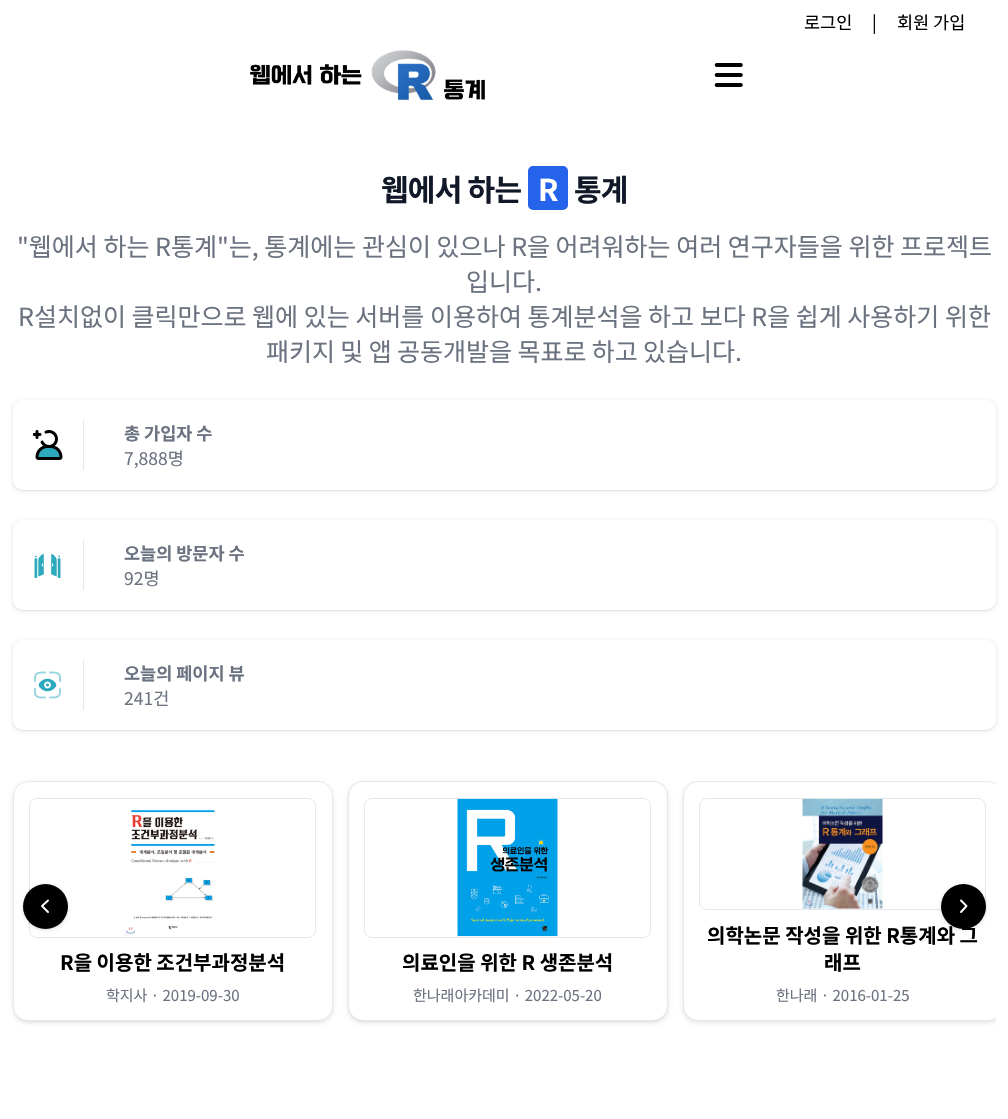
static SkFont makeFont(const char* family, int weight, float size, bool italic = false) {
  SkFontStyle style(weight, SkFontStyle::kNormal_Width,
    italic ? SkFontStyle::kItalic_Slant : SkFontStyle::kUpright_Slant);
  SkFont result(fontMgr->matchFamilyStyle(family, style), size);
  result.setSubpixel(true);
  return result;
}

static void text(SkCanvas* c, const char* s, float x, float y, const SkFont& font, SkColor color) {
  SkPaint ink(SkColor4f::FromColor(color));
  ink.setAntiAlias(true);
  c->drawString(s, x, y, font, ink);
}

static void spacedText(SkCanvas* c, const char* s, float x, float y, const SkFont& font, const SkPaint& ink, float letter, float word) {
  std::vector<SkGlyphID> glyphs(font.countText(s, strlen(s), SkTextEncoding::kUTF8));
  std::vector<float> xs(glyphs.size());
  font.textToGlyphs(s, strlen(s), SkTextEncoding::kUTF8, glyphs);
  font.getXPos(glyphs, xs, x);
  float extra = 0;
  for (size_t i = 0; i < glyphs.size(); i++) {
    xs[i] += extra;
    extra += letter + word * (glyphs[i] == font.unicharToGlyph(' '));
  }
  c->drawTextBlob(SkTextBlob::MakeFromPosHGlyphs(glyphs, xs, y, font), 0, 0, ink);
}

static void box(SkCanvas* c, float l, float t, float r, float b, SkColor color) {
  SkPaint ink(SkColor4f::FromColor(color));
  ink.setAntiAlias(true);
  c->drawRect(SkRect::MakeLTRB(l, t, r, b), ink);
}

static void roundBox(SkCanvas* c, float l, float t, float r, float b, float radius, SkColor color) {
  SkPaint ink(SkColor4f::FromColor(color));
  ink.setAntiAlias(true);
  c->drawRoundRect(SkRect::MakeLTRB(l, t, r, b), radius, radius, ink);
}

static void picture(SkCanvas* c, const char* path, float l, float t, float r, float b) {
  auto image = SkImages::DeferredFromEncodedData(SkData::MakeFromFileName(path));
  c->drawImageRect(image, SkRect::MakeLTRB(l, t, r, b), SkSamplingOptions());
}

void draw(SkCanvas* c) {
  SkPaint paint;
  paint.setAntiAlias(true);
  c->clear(0xffffffff);
  SkFont face1 = makeFont("Noto Sans KR", 400, 17.5f);
  text(c, "로그인", 804, 29, face1, 0xff000000);
  text(c, "|", 872, 29, face1, 0xff000000);
  text(c, "회원 가입", 897, 29, face1, 0xff000000);
  picture(c, "img_01.png", 250, 50, 485, 100);
  picture(c, "img_02.png", 714, 63, 743, 87);
  SkFont face2 = makeFont("Noto Sans KR", 700, 30);
  paint.setColor(0xff111827);
  spacedText(c, "웹에서 하는", 381, 201, face2, paint, -0.75f, 0);
  roundBox(c, 528, 166, 568, 210, 5, 0xff2563eb);
  paint.setColor(0xffffffff);
  spacedText(c, "R", 538, 201, face2, paint, -0.75f, 0);
  paint.setColor(0xff111827);
  spacedText(c, "통계", 574, 201, face2, paint, -0.75f, 0);
  SkFont face3 = makeFont("Noto Sans KR", 400, 25);
  text(c, "\"웹에서 하는 R통계\"는, 통계에는 관심이 있으나 R을 어려워하는 여러 연구자들을 위한 프로젝트", 17, 256, face3, 0xff6b7280);
  text(c, "입니다.", 466, 291, face3, 0xff6b7280);
  text(c, "R설치없이 클릭만으로 웹에 있는 서버를 이용하여 통계분석을 하고 보다 R을 쉽게 사용하기 위한", 18, 326, face3, 0xff6b7280);
  paint.setColor(0xff6b7280);
  spacedText(c, "패키지 및 앱 공동개발을 목표로 하고 있습니다.", 266, 361, face3, paint, 0, -0.25f);
  paint.setColor(0x1a000000);
  paint.setMaskFilter(SkMaskFilter::MakeBlur(kNormal_SkBlurStyle, 1));
  c->drawRoundRect(SkRect::MakeLTRB(14, 403, 995, 490), 9, 9, paint);
  paint.setMaskFilter(nullptr);
  paint.setMaskFilter(SkMaskFilter::MakeBlur(kNormal_SkBlurStyle, 2));
  c->drawRoundRect(SkRect::MakeLTRB(13, 401, 996, 491), 10, 10, paint);
  paint.setMaskFilter(nullptr);
  roundBox(c, 13, 400, 996, 490, 10, 0xffffffff);
  picture(c, "img_03.png", 33, 430, 63, 460);
  box(c, 83, 420, 84, 470, 0xffe5e7eb);
  SkFont face4 = makeFont("Noto Sans KR", 700, 17.5f);
  text(c, "총 가입자 수", 124, 440, face4, 0xff6b7280);
  text(c, "7,888명", 124, 465, face1, 0xff6b7280);
  paint.setMaskFilter(SkMaskFilter::MakeBlur(kNormal_SkBlurStyle, 1));
  c->drawRoundRect(SkRect::MakeLTRB(14, 523, 995, 610), 9, 9, paint);
  paint.setMaskFilter(nullptr);
  paint.setMaskFilter(SkMaskFilter::MakeBlur(kNormal_SkBlurStyle, 2));
  c->drawRoundRect(SkRect::MakeLTRB(13, 521, 996, 611), 10, 10, paint);
  paint.setMaskFilter(nullptr);
  roundBox(c, 13, 520, 996, 610, 10, 0xffffffff);
  picture(c, "img_04.png", 34, 553, 61, 578);
  box(c, 83, 540, 84, 590, 0xffe5e7eb);
  text(c, "오늘의 방문자 수", 124, 560, face4, 0xff6b7280);
  text(c, "92명", 124, 585, face1, 0xff6b7280);
  paint.setMaskFilter(SkMaskFilter::MakeBlur(kNormal_SkBlurStyle, 1));
  c->drawRoundRect(SkRect::MakeLTRB(14, 643, 995, 730), 9, 9, paint);
  paint.setMaskFilter(nullptr);
  paint.setMaskFilter(SkMaskFilter::MakeBlur(kNormal_SkBlurStyle, 2));
  c->drawRoundRect(SkRect::MakeLTRB(13, 641, 996, 731), 10, 10, paint);
  paint.setMaskFilter(nullptr);
  roundBox(c, 13, 640, 996, 730, 10, 0xffffffff);
  picture(c, "img_05.png", 34, 671, 61, 699);
  box(c, 83, 660, 84, 710, 0xffe5e7eb);
  text(c, "오늘의 페이지 뷰", 124, 680, face4, 0xff6b7280);
  text(c, "241건", 124, 705, face1, 0xff6b7280);
  paint.setMaskFilter(SkMaskFilter::MakeBlur(kNormal_SkBlurStyle, 1));
  c->drawRoundRect(SkRect::MakeLTRB(14, 784, 331, 1021), 14, 14, paint);
  paint.setMaskFilter(nullptr);
  c->save();
  c->clipPath(SkPathBuilder(SkPathFillType::kEvenOdd).moveTo(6, 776).lineTo(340, 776).lineTo(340, 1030).lineTo(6, 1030).close().moveTo(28, 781).lineTo(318, 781).cubicTo(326.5f, 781, 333, 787.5f, 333, 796).lineTo(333, 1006).cubicTo(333, 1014.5f, 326.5f, 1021, 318, 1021).lineTo(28, 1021).cubicTo(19.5f, 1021, 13, 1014.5f, 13, 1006).lineTo(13, 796).cubicTo(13, 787.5f, 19.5f, 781, 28, 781).close().detach(), true);
  paint.setMaskFilter(SkMaskFilter::MakeBlur(kNormal_SkBlurStyle, 2));
  c->drawRoundRect(SkRect::MakeLTRB(13, 783, 333, 1023), 15, 15, paint);
  paint.setMaskFilter(nullptr);
  c->restore();
  paint.setColor(0xffffffff);
  c->drawRoundRect(SkRect::MakeLTRB(13.5f, 781.5f, 332.5f, 1020.5f), 14.5f, 14.5f, paint);
  paint.setStyle(SkPaint::kStroke_Style);
  paint.setStrokeWidth(1);
  paint.setColor(0xffe5e7eb);
  c->drawRoundRect(SkRect::MakeLTRB(13.5f, 781.5f, 332.5f, 1020.5f), 14.5f, 14.5f, paint);
  c->drawRoundRect(SkRect::MakeLTRB(29.5f, 798.5f, 315.5f, 937.5f), 7.5f, 7.5f, paint);
  paint.setStyle(SkPaint::kFill_Style);
  paint.setColor(0x1a000000);
  paint.setMaskFilter(SkMaskFilter::MakeBlur(kNormal_SkBlurStyle, 1));
  c->drawRoundRect(SkRect::MakeLTRB(24, 886, 66, 929), 21, 21, paint);
  paint.setMaskFilter(nullptr);
  paint.setMaskFilter(SkMaskFilter::MakeBlur(kNormal_SkBlurStyle, 2));
  c->drawRoundRect(SkRect::MakeLTRB(23, 885, 68, 930), 22.5f, 22.5f, paint);
  paint.setMaskFilter(nullptr);
  paint.setColor(0xff000000);
  c->drawCircle(45.5f, 906.5f, 22.5f, paint);
  paint.setStyle(SkPaint::kStroke_Style);
  paint.setStrokeWidth(1.9f);
  paint.setStrokeCap(SkPaint::kRound_Cap);
  paint.setStrokeJoin(SkPaint::kRound_Join);
  paint.setColor(0xffffffff);
  c->drawPath(SkPathBuilder().moveTo(48, 900.5f).lineTo(42, 906).lineTo(48, 912).detach(), paint);
  c->save();
  c->clipRect(SkRect::MakeLTRB(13, 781, 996, 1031));
  paint.setStyle(SkPaint::kFill_Style);
  paint.setColor(0x1a000000);
  paint.setMaskFilter(SkMaskFilter::MakeBlur(kNormal_SkBlurStyle, 2));
  c->drawRoundRect(SkRect::MakeLTRB(683, 783, 1003, 1023), 15, 15, paint);
  paint.setMaskFilter(nullptr);
  c->restore();
  c->save();
  c->clipRect(SkRect::MakeLTRB(13, 781, 996, 1031));
  paint.setColor(0xffffffff);
  c->drawRoundRect(SkRect::MakeLTRB(683.5f, 781.5f, 1002.5f, 1020.5f), 14.5f, 14.5f, paint);
  paint.setStyle(SkPaint::kStroke_Style);
  paint.setStrokeWidth(1);
  paint.setStrokeCap(SkPaint::kButt_Cap);
  paint.setStrokeJoin(SkPaint::kMiter_Join);
  paint.setColor(0xffe5e7eb);
  c->drawRoundRect(SkRect::MakeLTRB(683.5f, 781.5f, 1002.5f, 1020.5f), 14.5f, 14.5f, paint);
  c->restore();
  c->drawRoundRect(SkRect::MakeLTRB(699.5f, 798.5f, 985.5f, 909.5f), 7.5f, 7.5f, paint);
  paint.setStyle(SkPaint::kFill_Style);
  paint.setColor(0x1a000000);
  paint.setMaskFilter(SkMaskFilter::MakeBlur(kNormal_SkBlurStyle, 1));
  c->drawRoundRect(SkRect::MakeLTRB(943, 886, 985, 929), 21, 21, paint);
  paint.setMaskFilter(nullptr);
  paint.setMaskFilter(SkMaskFilter::MakeBlur(kNormal_SkBlurStyle, 2));
  c->drawRoundRect(SkRect::MakeLTRB(941, 885, 986, 930), 22.5f, 22.5f, paint);
  paint.setMaskFilter(nullptr);
  paint.setColor(0xff000000);
  c->drawCircle(963.5f, 906.5f, 22.5f, paint);
  paint.setStyle(SkPaint::kStroke_Style);
  paint.setStrokeWidth(1.9f);
  paint.setStrokeCap(SkPaint::kRound_Cap);
  paint.setStrokeJoin(SkPaint::kRound_Join);
  paint.setColor(0xffffffff);
  c->drawPath(SkPathBuilder().moveTo(961, 900.5f).lineTo(966.5f, 906).lineTo(961, 912).detach(), paint);
  picture(c, "img_06.png", 124, 810, 215, 936);
  SkFont face5 = makeFont("Noto Sans KR", 700, 20);
  text(c, "R을 이용한 조건부과정분석", 60, 970, face5, 0xff000000);
  SkFont face6 = makeFont("Noto Sans KR", 400, 15);
  text(c, "학지사 · 2019-09-30", 106, 1001, face6, 0xff6b7280);
  paint.setStyle(SkPaint::kFill_Style);
  paint.setColor(0x1a000000);
  paint.setMaskFilter(SkMaskFilter::MakeBlur(kNormal_SkBlurStyle, 1));
  c->drawRoundRect(SkRect::MakeLTRB(349, 784, 666, 1021), 14, 14, paint);
  paint.setMaskFilter(nullptr);
  paint.setMaskFilter(SkMaskFilter::MakeBlur(kNormal_SkBlurStyle, 2));
  c->drawRoundRect(SkRect::MakeLTRB(348, 783, 668, 1023), 15, 15, paint);
  paint.setMaskFilter(nullptr);
  paint.setColor(0xffffffff);
  c->drawRoundRect(SkRect::MakeLTRB(348.5f, 781.5f, 667.5f, 1020.5f), 14.5f, 14.5f, paint);
  paint.setStyle(SkPaint::kStroke_Style);
  paint.setStrokeWidth(1);
  paint.setStrokeCap(SkPaint::kButt_Cap);
  paint.setStrokeJoin(SkPaint::kMiter_Join);
  paint.setColor(0xffe5e7eb);
  c->drawRoundRect(SkRect::MakeLTRB(348.5f, 781.5f, 667.5f, 1020.5f), 14.5f, 14.5f, paint);
  c->drawRoundRect(SkRect::MakeLTRB(364.5f, 798.5f, 650.5f, 937.5f), 7.5f, 7.5f, paint);
  picture(c, "img_07.png", 457, 798, 558, 937);
  text(c, "의료인을 위한 R 생존분석", 402, 970, face5, 0xff000000);
  text(c, "한나래아카데미 · 2022-05-20", 413, 1001, face6, 0xff6b7280);
  picture(c, "img_08.png", 802, 798, 883, 909);
  text(c, "의학논문 작성을 위한 R통계와 그", 707, 943, face5, 0xff000000);
  text(c, "래프", 824, 970, face5, 0xff000000);
  text(c, "한나래 · 2016-01-25", 776, 1001, face6, 0xff6b7280);
}
